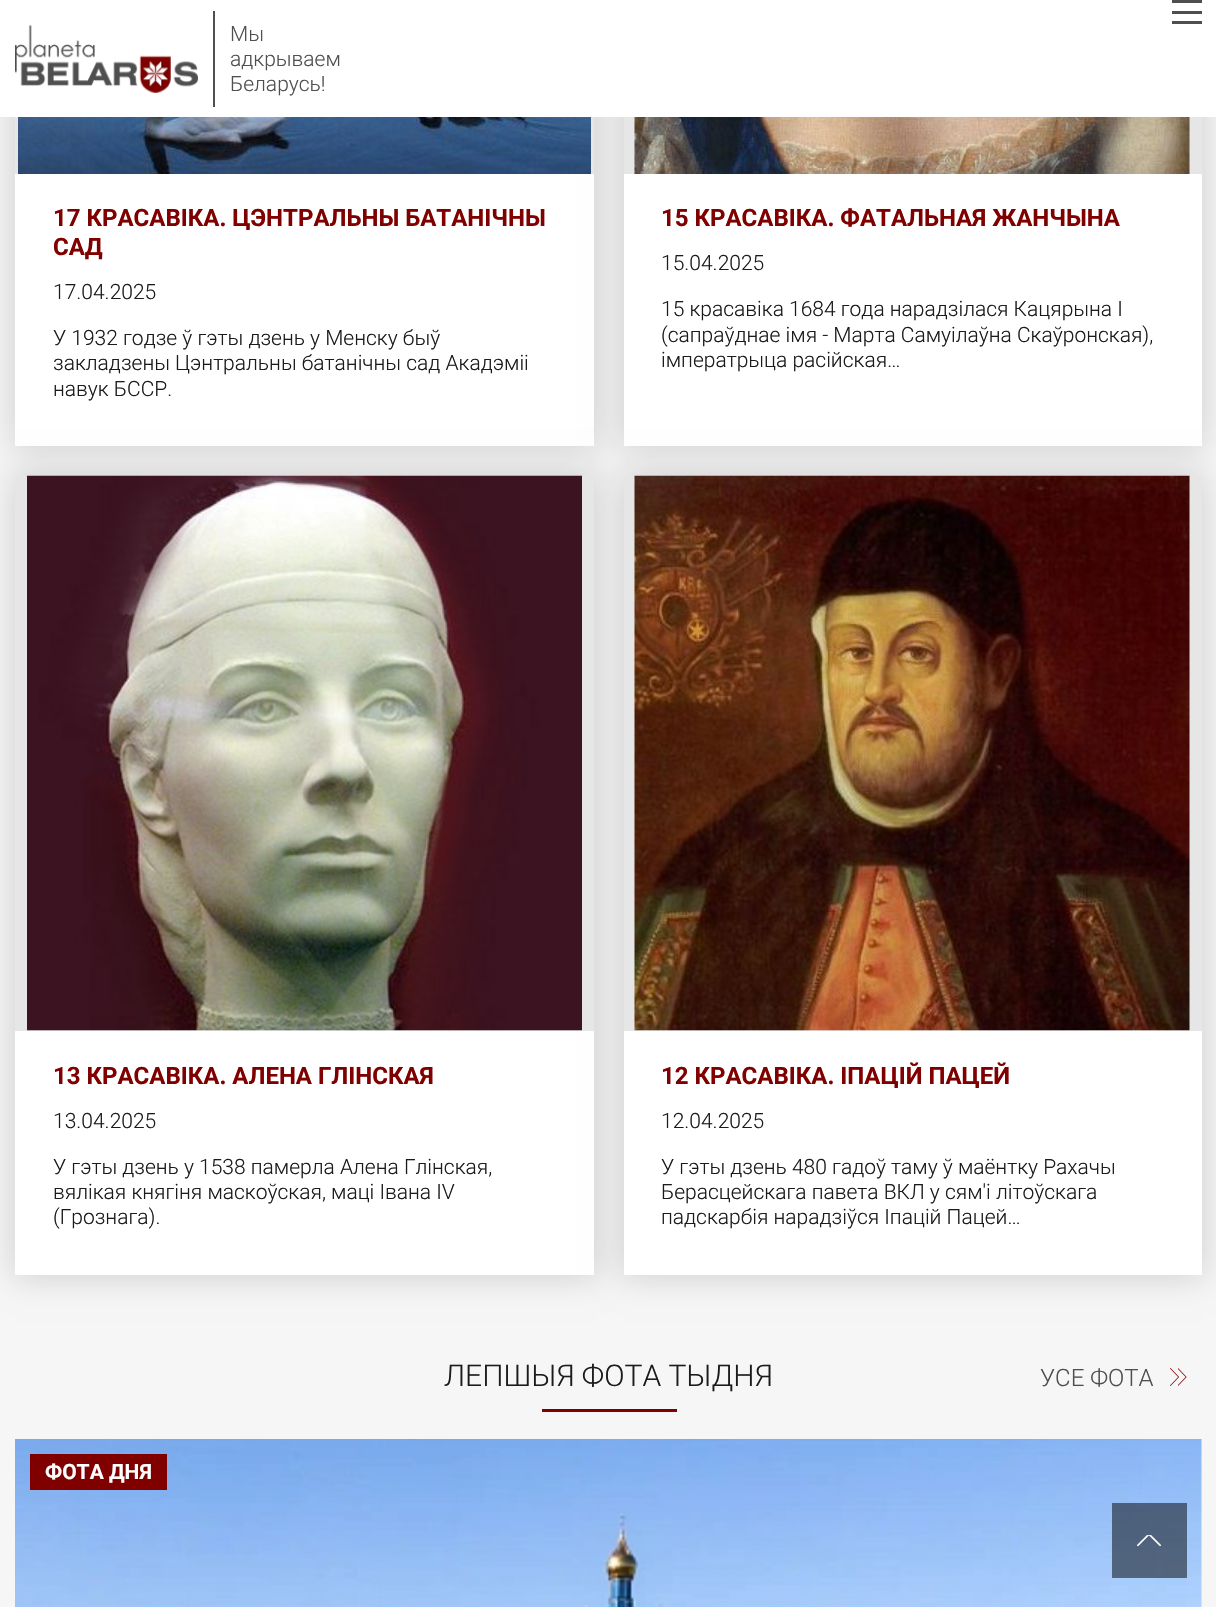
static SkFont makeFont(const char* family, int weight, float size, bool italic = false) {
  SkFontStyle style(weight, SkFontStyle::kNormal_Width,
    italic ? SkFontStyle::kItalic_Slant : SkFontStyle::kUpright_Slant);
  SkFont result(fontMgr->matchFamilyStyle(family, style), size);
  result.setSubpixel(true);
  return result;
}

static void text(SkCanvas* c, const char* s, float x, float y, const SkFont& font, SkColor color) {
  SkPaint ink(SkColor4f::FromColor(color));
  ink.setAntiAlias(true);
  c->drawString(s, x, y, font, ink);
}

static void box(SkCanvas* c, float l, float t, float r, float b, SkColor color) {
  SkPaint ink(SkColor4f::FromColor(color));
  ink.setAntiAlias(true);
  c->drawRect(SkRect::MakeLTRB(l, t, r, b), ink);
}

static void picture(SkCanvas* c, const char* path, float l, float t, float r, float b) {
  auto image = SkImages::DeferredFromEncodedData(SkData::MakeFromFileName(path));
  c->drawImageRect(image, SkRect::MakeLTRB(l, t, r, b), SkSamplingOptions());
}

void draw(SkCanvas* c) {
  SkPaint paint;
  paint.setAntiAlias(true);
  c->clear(0xfff6f6f6);
  paint.setColor(0x29000000);
  paint.setMaskFilter(SkMaskFilter::MakeBlur(kNormal_SkBlurStyle, 15.5f));
  c->drawRect(SkRect::MakeLTRB(14, -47, 596, 447), paint);
  paint.setMaskFilter(nullptr);
  box(c, 15, 174, 594, 446, 0xffffffff);
  paint.setMaskFilter(SkMaskFilter::MakeBlur(kNormal_SkBlurStyle, 15.5f));
  c->drawRect(SkRect::MakeLTRB(623, -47, 1203, 447), paint);
  paint.setMaskFilter(nullptr);
  box(c, 0, 0, 1216, 117, 0xffffffff);
  box(c, 1172, 0, 1202, 3, 0xff4f4f4f);
  box(c, 1172, 11, 1202, 14, 0xff4f4f4f);
  box(c, 1172, 21, 1202, 24, 0xff4f4f4f);
  picture(c, "img_01.png", 15, 25, 198, 93);
  box(c, 213, 11, 215, 107, 0xff4f4f4f);
  SkFont face1 = makeFont("Roboto", 300, 21);
  text(c, "Мы", 230, 41, face1, 0xff4f4f4f);
  text(c, "адкрываем", 230, 66, face1, 0xff4f4f4f);
  text(c, "Беларусь!", 230, 91, face1, 0xff4f4f4f);
  box(c, 15, 117, 594, 174, 0xffe6e6e6);
  picture(c, "img_02.png", 18, 117, 591, 174);
  SkFont face2 = makeFont("Roboto", 700, 24);
  text(c, "17 КРАСАВІКА. ЦЭНТРАЛЬНЫ БАТАНІЧНЫ", 53, 226, face2, 0xff800000);
  text(c, "САД", 53, 255, face2, 0xff800000);
  text(c, "17.04.2025", 53, 299, face1, 0xff1b1b1b);
  text(c, "У 1932 годзе ў гэты дзень у Менску быў", 53, 345, face1, 0xff1b1b1b);
  text(c, "закладзены Цэнтральны батанічны сад Акадэміі", 53, 370, face1, 0xff1b1b1b);
  text(c, "навук БССР.", 53, 396, face1, 0xff1b1b1b);
  box(c, 624, 174, 1202, 446, 0xffffffff);
  box(c, 624, 117, 1202, 174, 0xffe6e6e6);
  picture(c, "img_03.png", 634, 117, 1190, 174);
  text(c, "15 КРАСАВІКА. ФАТАЛЬНАЯ ЖАНЧЫНА", 661, 226, face2, 0xff800000);
  text(c, "15.04.2025", 661, 270, face1, 0xff1b1b1b);
  text(c, "15 красавіка 1684 года нарадзілася Кацярына I", 661, 316, face1, 0xff1b1b1b);
  text(c, "(сапраўднае імя - Марта Самуілаўна Скаўронская),", 661, 342, face1, 0xff1b1b1b);
  text(c, "імператрыца расійская…", 661, 367, face1, 0xff1b1b1b);
  paint.setMaskFilter(SkMaskFilter::MakeBlur(kNormal_SkBlurStyle, 15.5f));
  c->drawRect(SkRect::MakeLTRB(14, 474, 596, 1277), paint);
  paint.setMaskFilter(nullptr);
  box(c, 15, 1031, 594, 1275, 0xffffffff);
  paint.setMaskFilter(SkMaskFilter::MakeBlur(kNormal_SkBlurStyle, 15.5f));
  c->drawRect(SkRect::MakeLTRB(623, 474, 1203, 1277), paint);
  paint.setMaskFilter(nullptr);
  box(c, 15, 476, 594, 1031, 0xffe6e6e6);
  picture(c, "img_04.png", 27, 475, 582, 1031);
  text(c, "13 КРАСАВІКА. АЛЕНА ГЛІНСКАЯ", 53, 1084, face2, 0xff800000);
  text(c, "13.04.2025", 53, 1128, face1, 0xff1b1b1b);
  text(c, "У гэты дзень у 1538 памерла Алена Глінская,", 53, 1174, face1, 0xff1b1b1b);
  text(c, "вялікая княгіня маскоўская, маці Івана IV", 53, 1199, face1, 0xff1b1b1b);
  text(c, "(Грознага).", 53, 1224, face1, 0xff1b1b1b);
  box(c, 624, 1031, 1202, 1275, 0xffffffff);
  box(c, 624, 476, 1202, 1031, 0xffe6e6e6);
  picture(c, "img_05.png", 634, 475, 1190, 1031);
  text(c, "12 КРАСАВІКА. ІПАЦІЙ ПАЦЕЙ", 661, 1084, face2, 0xff800000);
  text(c, "12.04.2025", 661, 1128, face1, 0xff1b1b1b);
  text(c, "У гэты дзень 480 гадоў таму ў маёнтку Рахачы", 661, 1174, face1, 0xff1b1b1b);
  text(c, "Берасцейскага павета ВКЛ у сям'і літоўскага", 661, 1199, face1, 0xff1b1b1b);
  text(c, "падскарбія нарадзіўся Іпацій Пацей…", 661, 1224, face1, 0xff1b1b1b);
  SkFont face3 = makeFont("Roboto", 300, 30);
  text(c, "ЛЕПШЫЯ ФОТА ТЫДНЯ", 444, 1386, face3, 0xff1b1b1b);
  box(c, 542, 1409, 677, 1412, 0xff800000);
  SkFont face4 = makeFont("Roboto", 300, 24);
  text(c, "УСЕ ФОТА", 1040, 1386, face4, 0xff4f4f4f);
  picture(c, "img_06.png", 1170, 1368, 1179, 1386);
  picture(c, "img_07.png", 1178, 1368, 1187, 1386);
  picture(c, "img_08.png", 15, 1439, 1202, 1607);
  box(c, 30, 1454, 167, 1490, 0xff800000);
  SkFont face5 = makeFont("Roboto", 700, 21);
  text(c, "ФОТА ДНЯ", 45, 1479, face5, 0xffffffff);
  box(c, 1112, 1503, 1187, 1578, 0x80000000);
  picture(c, "img_09.png", 1137, 1535, 1161, 1547);
}
